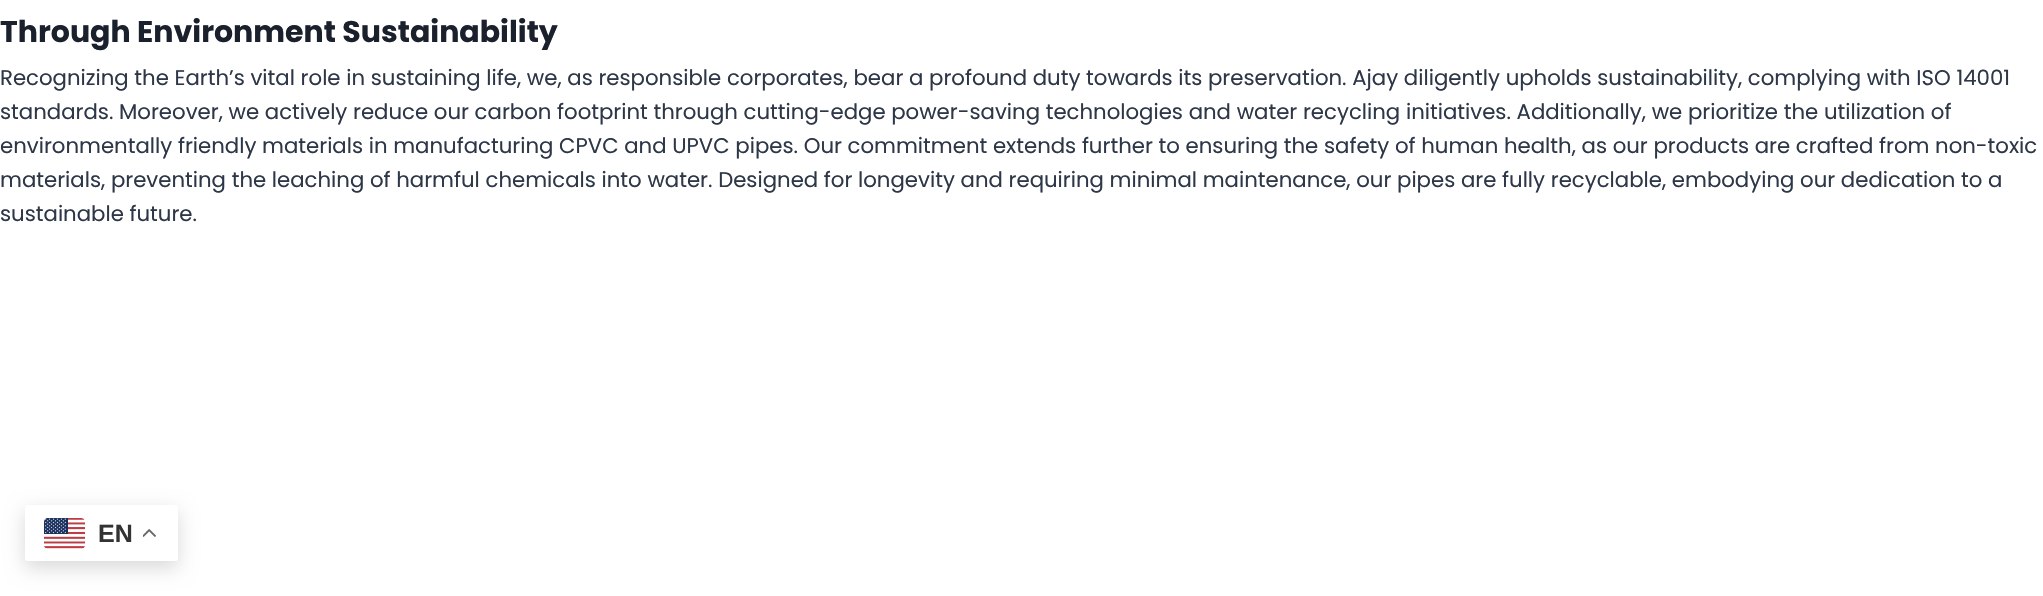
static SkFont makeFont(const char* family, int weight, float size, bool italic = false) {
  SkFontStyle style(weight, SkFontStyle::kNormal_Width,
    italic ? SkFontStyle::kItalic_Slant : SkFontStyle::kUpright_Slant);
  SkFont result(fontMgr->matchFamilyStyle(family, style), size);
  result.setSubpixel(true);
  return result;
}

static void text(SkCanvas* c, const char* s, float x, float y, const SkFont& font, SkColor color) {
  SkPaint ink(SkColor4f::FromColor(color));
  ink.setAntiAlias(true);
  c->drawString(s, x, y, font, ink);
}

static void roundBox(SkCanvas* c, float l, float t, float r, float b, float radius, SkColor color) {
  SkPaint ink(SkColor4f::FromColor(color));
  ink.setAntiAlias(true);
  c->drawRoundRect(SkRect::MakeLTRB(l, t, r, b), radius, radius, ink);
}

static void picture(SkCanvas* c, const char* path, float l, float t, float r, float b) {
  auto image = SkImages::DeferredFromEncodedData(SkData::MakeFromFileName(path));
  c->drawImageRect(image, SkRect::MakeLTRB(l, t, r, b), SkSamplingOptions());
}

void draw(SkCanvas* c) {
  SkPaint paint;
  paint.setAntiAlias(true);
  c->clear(0xffffffff);
  SkFont face1 = makeFont("Poppins", 700, 30);
  text(c, "Through Environment Sustainability", 0, 42, face1, 0xff1a202c);
  SkFont face2 = makeFont("Poppins", 400, 21.25f);
  text(c, "Recognizing the Earth’s vital role in sustaining life, we, as responsible corporates, bear a profound duty towards its preservation. Ajay diligently upholds sustainability, complying with ISO 14001", 0, 85, face2, 0xff2d3748);
  text(c, "standards. Moreover, we actively reduce our carbon footprint through cutting-edge power-saving technologies and water recycling initiatives. Additionally, we prioritize the utilization of", 0, 119, face2, 0xff2d3748);
  text(c, "environmentally friendly materials in manufacturing CPVC and UPVC pipes. Our commitment extends further to ensuring the safety of human health, as our products are crafted from non-toxic", 0, 153, face2, 0xff2d3748);
  text(c, "materials, preventing the leaching of harmful chemicals into water. Designed for longevity and requiring minimal maintenance, our pipes are fully recyclable, embodying our dedication to a", 0, 187, face2, 0xff2d3748);
  text(c, "sustainable future.", 0, 221, face2, 0xff2d3748);
  paint.setColor(0x26000000);
  paint.setMaskFilter(SkMaskFilter::MakeBlur(kNormal_SkBlurStyle, 9.5f));
  c->drawRoundRect(SkRect::MakeLTRB(25, 511, 178, 568), 2.5f, 2.5f, paint);
  paint.setMaskFilter(nullptr);
  roundBox(c, 25, 505, 178, 561, 2.5f, 0xffffffff);
  picture(c, "img_01.png", 44, 518, 85, 549);
  SkFont face3 = makeFont("Liberation Sans", 700, 25);
  text(c, "EN", 98, 542, face3, 0xff333333);
  picture(c, "img_02.png", 143, 529, 156, 537);
}
